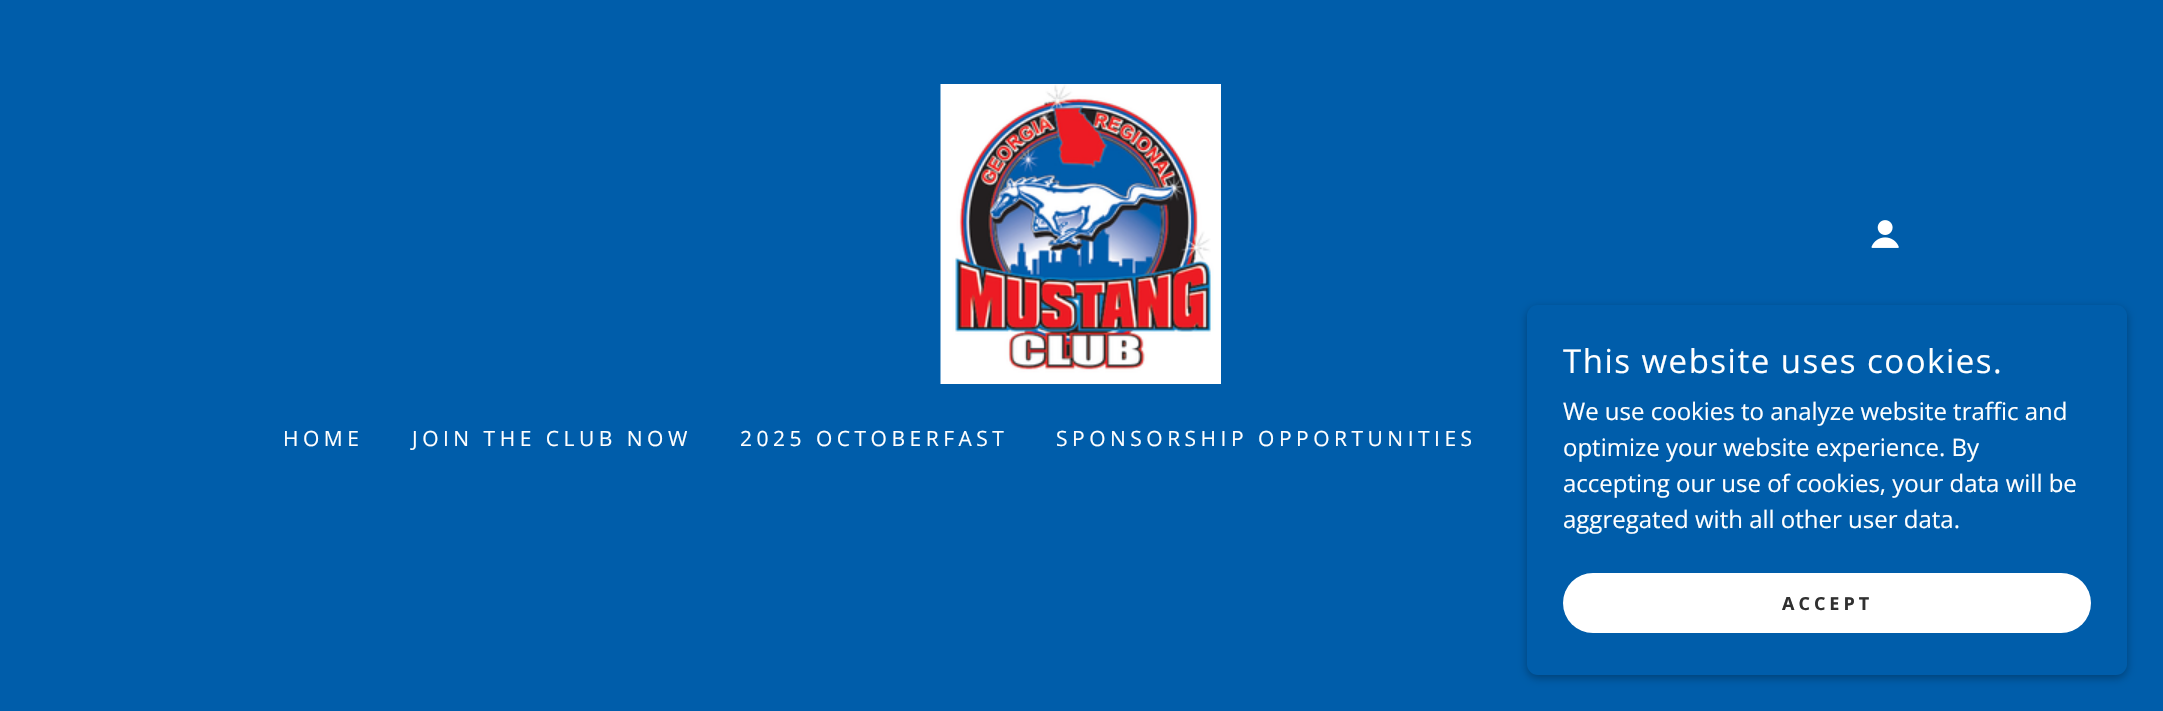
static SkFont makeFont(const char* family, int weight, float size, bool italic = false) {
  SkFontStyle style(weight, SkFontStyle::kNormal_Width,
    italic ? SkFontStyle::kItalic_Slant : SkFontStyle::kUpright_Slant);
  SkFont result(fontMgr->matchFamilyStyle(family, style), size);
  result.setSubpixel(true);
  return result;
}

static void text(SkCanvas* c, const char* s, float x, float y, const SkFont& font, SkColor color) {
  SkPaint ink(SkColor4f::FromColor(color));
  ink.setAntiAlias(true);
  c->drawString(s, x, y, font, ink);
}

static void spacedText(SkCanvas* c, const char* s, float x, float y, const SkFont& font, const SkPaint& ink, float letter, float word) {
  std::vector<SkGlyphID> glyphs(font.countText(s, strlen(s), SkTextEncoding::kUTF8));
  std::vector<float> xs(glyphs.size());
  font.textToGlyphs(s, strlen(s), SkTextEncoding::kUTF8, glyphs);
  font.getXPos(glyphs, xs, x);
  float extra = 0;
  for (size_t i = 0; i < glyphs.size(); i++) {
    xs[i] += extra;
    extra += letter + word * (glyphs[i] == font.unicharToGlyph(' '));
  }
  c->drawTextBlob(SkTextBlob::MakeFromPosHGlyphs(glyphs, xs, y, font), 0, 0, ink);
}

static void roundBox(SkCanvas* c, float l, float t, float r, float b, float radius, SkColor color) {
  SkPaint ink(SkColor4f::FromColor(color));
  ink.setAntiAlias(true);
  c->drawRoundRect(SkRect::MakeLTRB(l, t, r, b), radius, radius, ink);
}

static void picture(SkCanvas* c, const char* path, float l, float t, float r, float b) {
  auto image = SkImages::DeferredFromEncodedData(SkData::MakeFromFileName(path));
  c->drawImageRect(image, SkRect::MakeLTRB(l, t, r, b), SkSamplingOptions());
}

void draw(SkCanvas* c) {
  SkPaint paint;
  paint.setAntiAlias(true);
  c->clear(0xff005daa);
  picture(c, "img_01.png", 940, 84, 1221, 384);
  picture(c, "img_02.png", 1871, 220, 1899, 248);
  SkFont face1 = makeFont("Open Sans", 400, 21);
  paint.setColor(0xffffffff);
  spacedText(c, "HOME", 283, 446, face1, paint, 4.5f, 0);
  spacedText(c, "JOIN THE CLUB NOW", 412, 446, face1, paint, 4.5f, 0);
  spacedText(c, "2025 OCTOBERFAST", 740, 446, face1, paint, 4.5f, 0);
  spacedText(c, "SPONSORSHIP OPPORTUNITIES", 1056, 446, face1, paint, 4.5f, 0);
  paint.setColor(0x4d000000);
  paint.setMaskFilter(SkMaskFilter::MakeBlur(kNormal_SkBlurStyle, 4.5f));
  c->drawRoundRect(SkRect::MakeLTRB(1527, 308, 2127, 678), 11, 11, paint);
  paint.setMaskFilter(nullptr);
  roundBox(c, 1527, 305, 2127, 675, 11, 0xff005daa);
  SkFont face2 = makeFont("Open Sans", 400, 33);
  paint.setColor(0xffffffff);
  spacedText(c, "This website uses cookies.", 1563, 373, face2, paint, 1.5f, 0);
  SkFont face3 = makeFont("Open Sans", 400, 24);
  text(c, "We use cookies to analyze website traffic and", 1563, 420, face3, 0xffffffff);
  text(c, "optimize your website experience. By", 1563, 456, face3, 0xffffffff);
  text(c, "accepting our use of cookies, your data will be", 1563, 492, face3, 0xffffffff);
  text(c, "aggregated with all other user data.", 1563, 528, face3, 0xffffffff);
  roundBox(c, 1563, 573, 2091, 633, 30, 0xffffffff);
  SkFont face4 = makeFont("Open Sans", 700, 18);
  paint.setColor(0xff303030);
  spacedText(c, "ACCEPT", 1782, 610, face4, paint, 4, 0);
}
